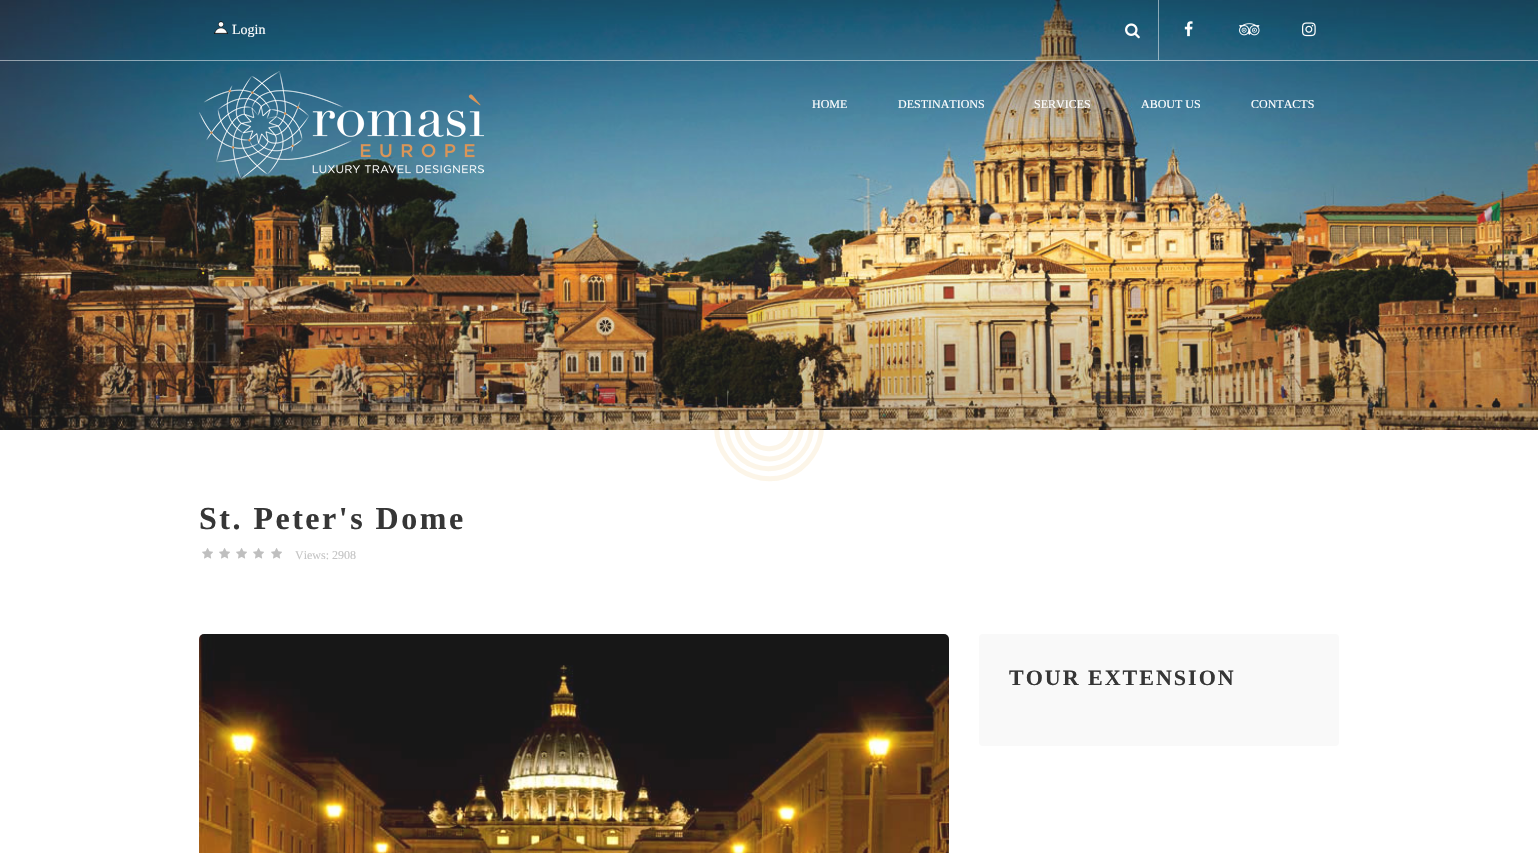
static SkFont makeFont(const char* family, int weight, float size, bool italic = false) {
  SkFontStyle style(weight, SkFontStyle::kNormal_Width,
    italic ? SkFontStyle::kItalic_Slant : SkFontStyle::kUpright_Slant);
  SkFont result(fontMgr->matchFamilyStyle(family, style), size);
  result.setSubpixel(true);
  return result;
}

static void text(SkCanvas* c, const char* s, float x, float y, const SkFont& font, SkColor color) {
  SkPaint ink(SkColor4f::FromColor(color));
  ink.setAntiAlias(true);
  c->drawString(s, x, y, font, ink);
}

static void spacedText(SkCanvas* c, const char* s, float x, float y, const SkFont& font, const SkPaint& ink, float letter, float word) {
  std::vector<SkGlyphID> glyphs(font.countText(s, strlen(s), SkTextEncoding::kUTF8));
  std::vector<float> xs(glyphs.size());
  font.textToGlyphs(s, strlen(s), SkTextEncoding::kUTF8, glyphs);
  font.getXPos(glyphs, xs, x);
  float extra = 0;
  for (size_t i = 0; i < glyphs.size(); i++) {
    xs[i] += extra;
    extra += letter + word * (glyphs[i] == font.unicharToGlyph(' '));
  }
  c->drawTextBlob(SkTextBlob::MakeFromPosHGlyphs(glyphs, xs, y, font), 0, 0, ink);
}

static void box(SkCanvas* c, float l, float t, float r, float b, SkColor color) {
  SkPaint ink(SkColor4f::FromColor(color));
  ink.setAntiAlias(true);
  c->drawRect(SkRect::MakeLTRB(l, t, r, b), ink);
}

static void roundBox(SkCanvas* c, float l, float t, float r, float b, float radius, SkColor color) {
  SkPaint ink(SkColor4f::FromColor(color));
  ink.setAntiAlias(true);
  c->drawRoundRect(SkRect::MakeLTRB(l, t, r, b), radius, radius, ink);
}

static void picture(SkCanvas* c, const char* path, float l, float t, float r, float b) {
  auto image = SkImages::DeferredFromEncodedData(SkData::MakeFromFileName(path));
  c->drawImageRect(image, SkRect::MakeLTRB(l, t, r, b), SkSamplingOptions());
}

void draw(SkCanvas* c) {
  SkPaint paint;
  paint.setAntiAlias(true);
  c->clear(0xffffffff);
  picture(c, "img_01.png", 0, 0, 1538, 430);
  box(c, 0, 60, 1538, 61, 0x80ffffff);
  picture(c, "img_02.png", 214, 21, 228, 34);
  SkFont face1 = makeFont("Liberation Serif", 400, 14);
  text(c, "Login", 232, 34, face1, 0xffffffff);
  box(c, 1158, 0, 1159, 60, 0x80ffffff);
  picture(c, "img_03.png", 1125, 23, 1140, 39);
  picture(c, "img_04.png", 1184, 21, 1193, 37);
  picture(c, "img_05.png", 1239, 23, 1260, 36);
  picture(c, "img_06.png", 1302, 22, 1316, 37);
  picture(c, "img_07.png", 199, 71, 484, 179);
  SkFont face2 = makeFont("Liberation Serif", 400, 12);
  text(c, "HOME", 812, 108, face2, 0xffffffff);
  text(c, "DESTINATIONS", 898, 108, face2, 0xffffffff);
  text(c, "SERVICES", 1034, 108, face2, 0xffffffff);
  text(c, "ABOUT US", 1141, 108, face2, 0xffffffff);
  text(c, "CONTACTS", 1251, 108, face2, 0xffffffff);
  paint.setStyle(SkPaint::kStroke_Style);
  paint.setStrokeWidth(5);
  paint.setColor(0x17e09000);
  c->drawPath(SkPathBuilder().moveTo(821.5f, 426.5f).cubicTo(821.5f, 437, 818.5f, 447, 812.5f, 455.5f).cubicTo(784, 498.5f, 716.5f, 478, 716.5f, 426.5f).detach(), paint);
  c->drawPath(SkPathBuilder().moveTo(811.5f, 426.5f).cubicTo(811.5f, 468, 757, 484.5f, 733.5f, 450).cubicTo(729, 443, 726.5f, 435, 726.5f, 426.5f).detach(), paint);
  c->drawPath(SkPathBuilder().moveTo(801.5f, 426.5f).cubicTo(801.5f, 433, 799.5f, 439, 796, 444.5f).cubicTo(778.5f, 471, 736.5f, 458.5f, 736.5f, 426.5f).detach(), paint);
  c->drawPath(SkPathBuilder().moveTo(791.5f, 426.5f).cubicTo(791.5f, 456, 746.5f, 456, 746.5f, 426.5f).detach(), paint);
  SkFont face3 = makeFont("Liberation Serif", 700, 32);
  paint.setStyle(SkPaint::kFill_Style);
  paint.setColor(0xff363636);
  spacedText(c, "St. Peter's Dome", 199, 529, face3, paint, 2.5f, 0);
  picture(c, "img_08.png", 202, 548, 213, 559);
  picture(c, "img_08.png", 219, 548, 230, 559);
  picture(c, "img_08.png", 236, 548, 247, 559);
  picture(c, "img_08.png", 253, 548, 264, 559);
  picture(c, "img_08.png", 271, 548, 282, 559);
  text(c, "Views: 2908", 295, 559, face2, 0xffc4c4c4);
  picture(c, "img_09.png", 199, 634, 949, 853);
  roundBox(c, 979, 634, 1339, 746, 4, 0xfff9f9f9);
  SkFont face4 = makeFont("Liberation Serif", 700, 22);
  spacedText(c, "TOUR EXTENSION", 1009, 685, face4, paint, 2, 0);
}
